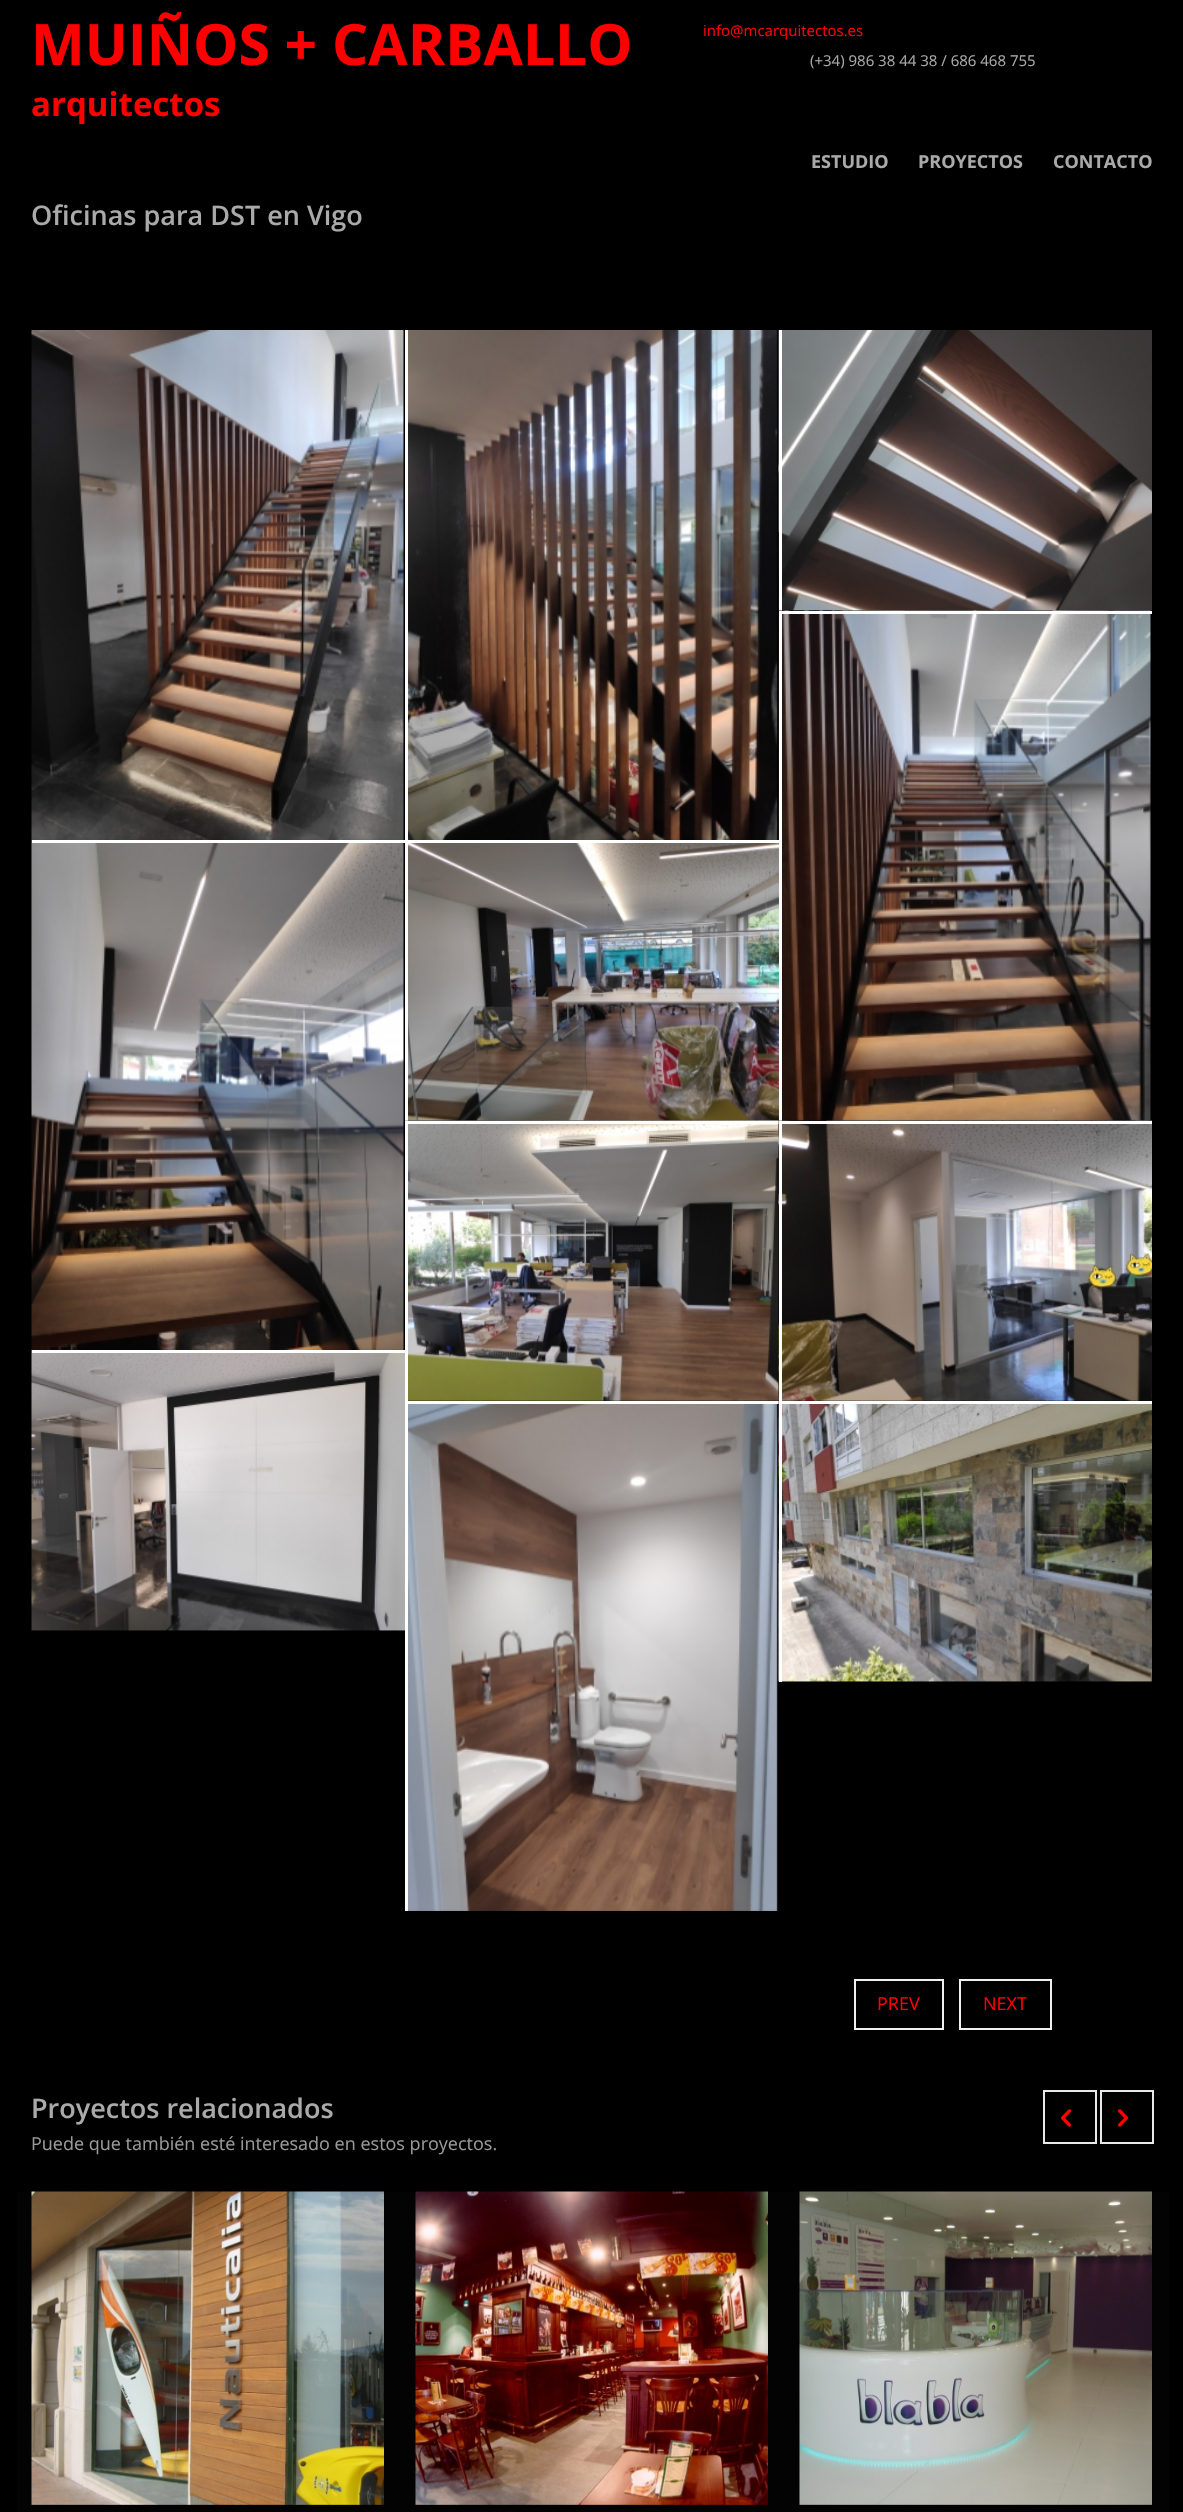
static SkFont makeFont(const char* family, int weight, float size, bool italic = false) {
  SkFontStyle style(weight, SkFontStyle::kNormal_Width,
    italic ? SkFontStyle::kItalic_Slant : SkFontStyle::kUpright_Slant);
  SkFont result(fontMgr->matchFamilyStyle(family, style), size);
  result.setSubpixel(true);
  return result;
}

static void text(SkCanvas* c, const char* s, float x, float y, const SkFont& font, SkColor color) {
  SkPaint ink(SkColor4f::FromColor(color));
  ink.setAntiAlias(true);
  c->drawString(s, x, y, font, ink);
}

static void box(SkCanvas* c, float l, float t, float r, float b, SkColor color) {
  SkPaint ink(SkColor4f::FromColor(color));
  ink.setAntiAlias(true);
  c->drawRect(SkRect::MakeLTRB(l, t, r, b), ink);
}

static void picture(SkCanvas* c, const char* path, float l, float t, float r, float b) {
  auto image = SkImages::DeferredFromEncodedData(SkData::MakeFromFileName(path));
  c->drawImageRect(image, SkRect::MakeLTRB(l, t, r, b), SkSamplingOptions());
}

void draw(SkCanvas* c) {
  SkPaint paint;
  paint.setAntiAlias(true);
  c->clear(0xff000000);
  SkFont face1 = makeFont("Open Sans", 700, 57);
  text(c, "MUIÑOS + CARBALLO", 31, 65, face1, 0xffff0000);
  SkFont face2 = makeFont("Open Sans", 700, 33);
  text(c, "arquitectos", 31, 116, face2, 0xffff0000);
  SkFont face3 = makeFont("Open Sans", 400, 15);
  text(c, "info@mcarquitectos.es", 703, 36, face3, 0xffff0000);
  text(c, "(+34) 986 38 44 38 / 686 468 755", 810, 66, face3, 0xffaaaaaa);
  SkFont face4 = makeFont("Open Sans", 700, 18);
  text(c, "ESTUDIO", 811, 168, face4, 0xffaaaaaa);
  text(c, "PROYECTOS", 918, 168, face4, 0xffaaaaaa);
  text(c, "CONTACTO", 1053, 168, face4, 0xffaaaaaa);
  SkFont face5 = makeFont("Open Sans", 600, 27);
  text(c, "Oficinas para DST en Vigo", 31, 225, face5, 0xffaaaaaa);
  picture(c, "img_01.png", 31, 330, 404, 840);
  box(c, 405, 330, 408, 840, 0xffffffff);
  picture(c, "img_02.png", 408, 330, 778, 840);
  picture(c, "img_03.png", 778, 330, 1152, 611);
  box(c, 779, 330, 782, 611, 0xffffffff);
  picture(c, "img_04.png", 31, 840, 404, 1350);
  picture(c, "img_05.png", 778, 610, 1151, 1121);
  box(c, 32, 840, 779, 843, 0xffffffff);
  box(c, 779, 611, 1152, 614, 0xffffffff);
  box(c, 779, 611, 782, 1121, 0xffffffff);
  box(c, 405, 840, 408, 1121, 0xffffffff);
  picture(c, "img_06.png", 408, 843, 779, 1121);
  picture(c, "img_07.png", 405, 1120, 779, 1401);
  box(c, 405, 1121, 779, 1124, 0xffffffff);
  box(c, 405, 1121, 408, 1401, 0xffffffff);
  picture(c, "img_08.png", 778, 1120, 1152, 1401);
  box(c, 779, 1121, 1152, 1124, 0xffffffff);
  box(c, 779, 1121, 782, 1401, 0xffffffff);
  picture(c, "img_09.png", 31, 1350, 405, 1631);
  box(c, 32, 1350, 405, 1353, 0xffffffff);
  box(c, 405, 1401, 779, 1404, 0xffffffff);
  box(c, 405, 1401, 408, 1911, 0xffffffff);
  picture(c, "img_10.png", 408, 1404, 778, 1911);
  picture(c, "img_11.png", 778, 1401, 1152, 1682);
  box(c, 779, 1401, 1152, 1404, 0xffffffff);
  box(c, 779, 1401, 782, 1682, 0xffffffff);
  paint.setStyle(SkPaint::kStroke_Style);
  paint.setStrokeWidth(2);
  paint.setColor(0xfff0f0f0);
  c->drawRect(SkRect::MakeLTRB(855, 1980, 943, 2029), paint);
  SkFont face6 = makeFont("Open Sans", 400, 18);
  text(c, "PREV", 877, 2010, face6, 0xffff0000);
  c->drawRect(SkRect::MakeLTRB(960, 1980, 1051, 2029), paint);
  text(c, "NEXT", 983, 2010, face6, 0xffff0000);
  text(c, "Proyectos relacionados", 31, 2118, face5, 0xffaaaaaa);
  text(c, "Puede que también esté interesado en estos proyectos.", 31, 2150, face6, 0xff999999);
  paint.setColor(0xffe9e9e9);
  c->drawRect(SkRect::MakeLTRB(1044, 2091, 1096, 2143), paint);
  picture(c, "img_12.png", 1061, 2109, 1072, 2127);
  c->drawRect(SkRect::MakeLTRB(1101, 2091, 1153, 2143), paint);
  picture(c, "img_13.png", 1118, 2109, 1129, 2127);
  box(c, 17, 2192, 1169, 2512, 0xff030303);
  picture(c, "img_14.png", 31, 2191, 384, 2505);
  picture(c, "img_15.png", 415, 2191, 768, 2505);
  picture(c, "img_16.png", 799, 2191, 1152, 2505);
}
